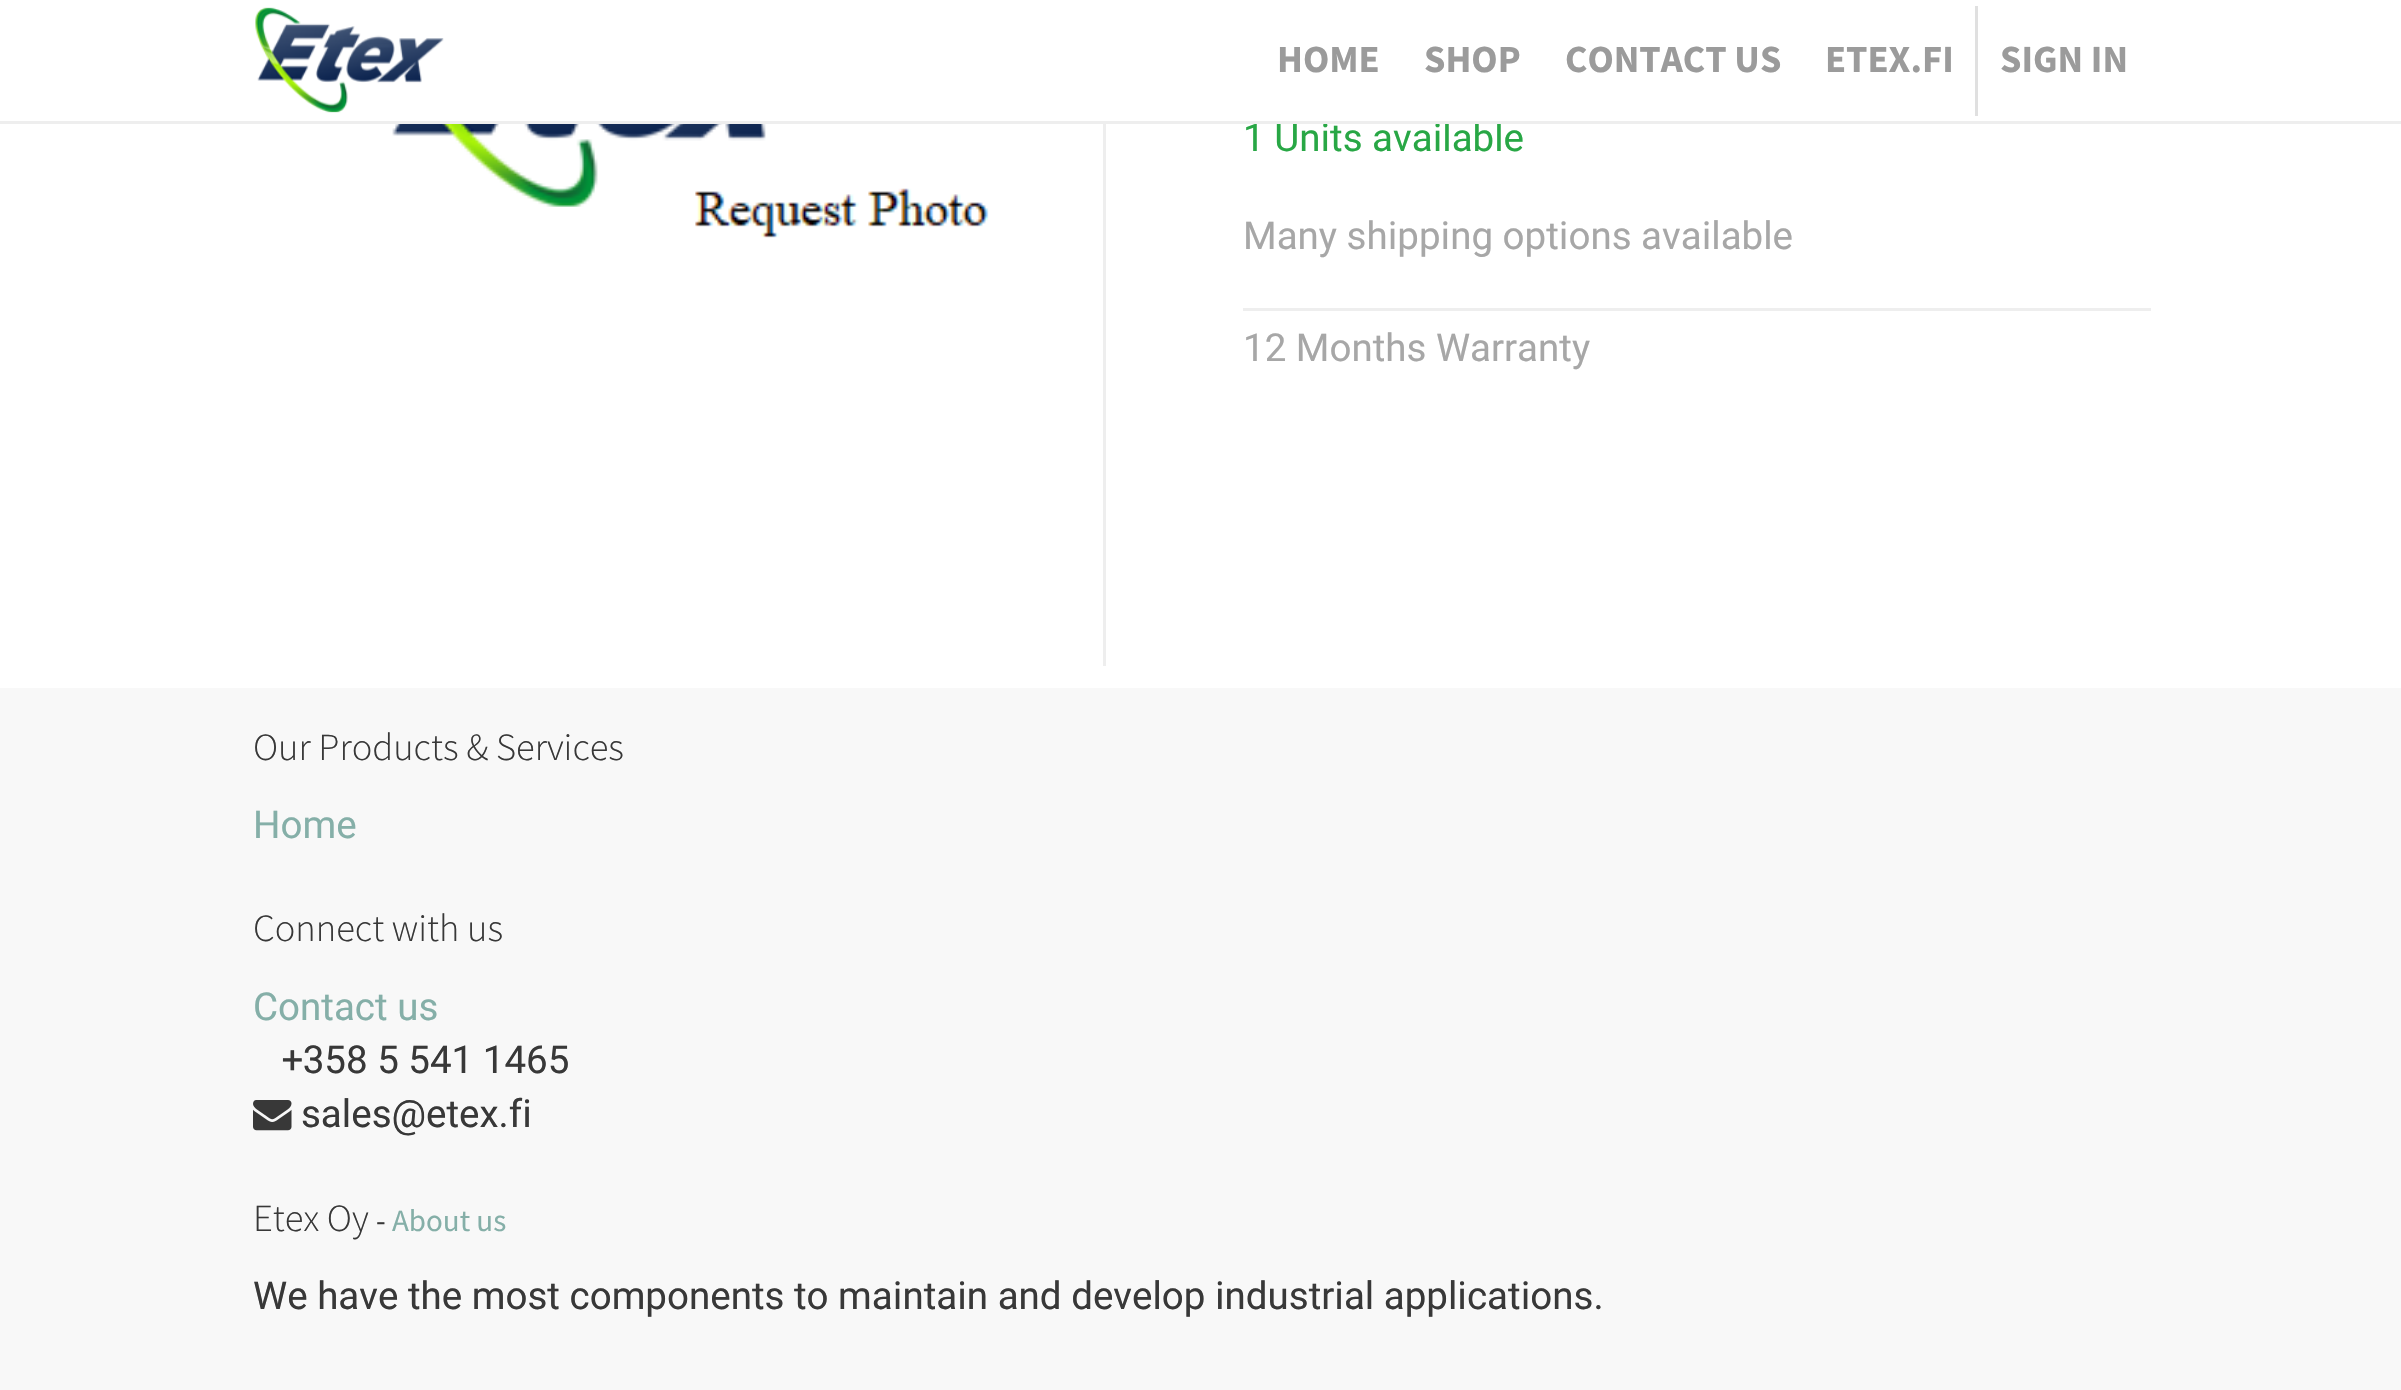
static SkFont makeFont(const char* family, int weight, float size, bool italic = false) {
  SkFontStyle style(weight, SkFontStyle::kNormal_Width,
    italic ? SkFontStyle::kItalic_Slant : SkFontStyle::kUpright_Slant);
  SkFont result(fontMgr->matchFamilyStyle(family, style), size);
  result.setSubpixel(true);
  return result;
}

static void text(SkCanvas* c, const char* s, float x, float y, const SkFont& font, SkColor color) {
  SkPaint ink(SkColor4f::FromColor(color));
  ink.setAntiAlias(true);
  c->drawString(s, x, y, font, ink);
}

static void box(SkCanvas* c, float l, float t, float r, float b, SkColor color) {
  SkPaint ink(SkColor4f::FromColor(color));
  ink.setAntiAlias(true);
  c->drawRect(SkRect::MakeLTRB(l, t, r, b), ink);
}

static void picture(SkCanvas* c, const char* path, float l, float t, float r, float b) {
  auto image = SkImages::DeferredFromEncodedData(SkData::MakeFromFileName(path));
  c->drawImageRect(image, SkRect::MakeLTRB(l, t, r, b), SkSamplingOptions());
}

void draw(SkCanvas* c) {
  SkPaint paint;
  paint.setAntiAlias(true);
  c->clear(0xffffffff);
  SkFont face1 = makeFont("Heebo", 400, 38.5f);
  text(c, "1 Units available", 1243, 151, face1, 0xff28a745);
  box(c, 0, 121, 2401, 124, 0xffeeeeee);
  picture(c, "img_01.png", 255, 7, 444, 113);
  SkFont face2 = makeFont("Source Sans Pro", 700, 38.5f);
  text(c, "HOME", 1277, 72, face2, 0xff9b9b9b);
  text(c, "SHOP", 1424, 72, face2, 0xff9b9b9b);
  text(c, "CONTACT US", 1565, 72, face2, 0xff9b9b9b);
  text(c, "ETEX.FI", 1825, 72, face2, 0xff9b9b9b);
  box(c, 1975, 6, 1978, 116, 0xffe0e0e0);
  text(c, "SIGN IN", 2000, 72, face2, 0xff9b9b9b);
  picture(c, "img_02.png", 387, 124, 989, 238);
  box(c, 1103, 124, 1106, 666, 0xffeeeeee);
  text(c, "Many shipping options available", 1243, 249, face1, 0xffa7a7a7);
  box(c, 1243, 308, 2151, 311, 0xffeeeeee);
  text(c, "12 Months Warranty", 1243, 361, face1, 0xffa7a7a7);
  box(c, 0, 688, 2401, 1390, 0xfff8f8f8);
  SkFont face3 = makeFont("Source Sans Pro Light", 300, 38.5f);
  text(c, "Our Products & Services", 253, 760, face3, 0xff383838);
  text(c, "Home", 253, 838, face1, 0xff85afa8);
  text(c, "Connect with us", 253, 941, face3, 0xff383838);
  text(c, "Contact us", 253, 1020, face1, 0xff85afa8);
  text(c, "+358 5 541 1465", 282, 1073, face1, 0xff383838);
  picture(c, "img_03.png", 253, 1100, 292, 1131);
  text(c, "sales@etex.fi", 301, 1127, face1, 0xff383838);
  text(c, "Etex Oy", 253, 1231, face3, 0xff383838);
  SkFont face4 = makeFont("Source Sans Pro", 400, 31);
  text(c, "-", 376, 1231, face4, 0xff383838);
  text(c, "About us", 392, 1231, face4, 0xff85afa8);
  text(c, "We have the most components to maintain and develop industrial applications.", 253, 1309, face1, 0xff383838);
}
